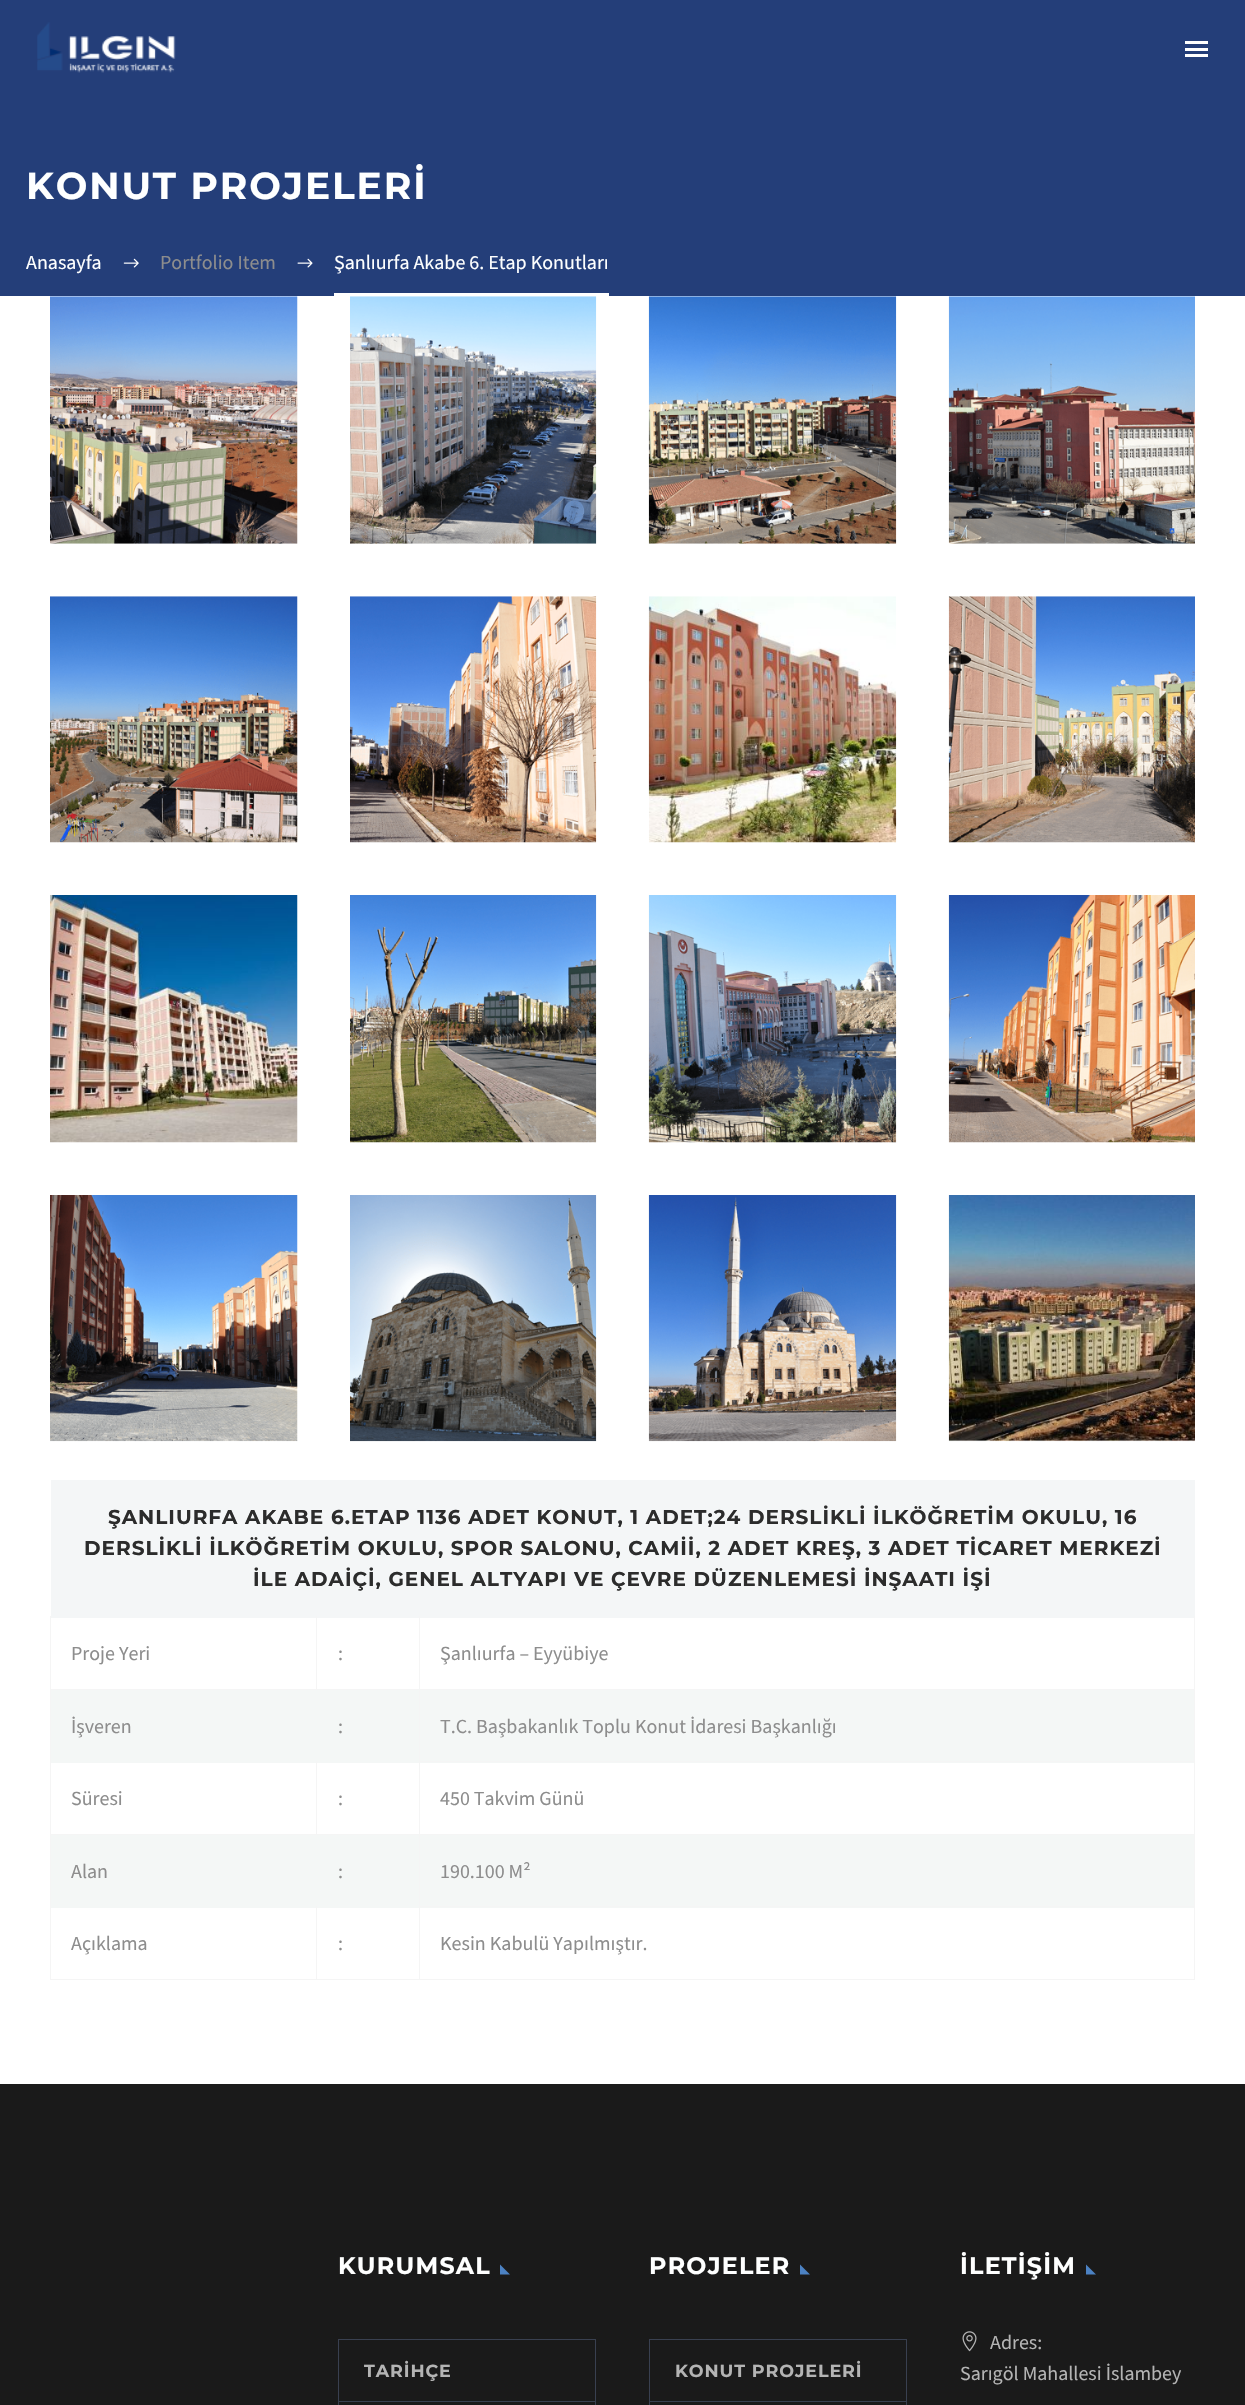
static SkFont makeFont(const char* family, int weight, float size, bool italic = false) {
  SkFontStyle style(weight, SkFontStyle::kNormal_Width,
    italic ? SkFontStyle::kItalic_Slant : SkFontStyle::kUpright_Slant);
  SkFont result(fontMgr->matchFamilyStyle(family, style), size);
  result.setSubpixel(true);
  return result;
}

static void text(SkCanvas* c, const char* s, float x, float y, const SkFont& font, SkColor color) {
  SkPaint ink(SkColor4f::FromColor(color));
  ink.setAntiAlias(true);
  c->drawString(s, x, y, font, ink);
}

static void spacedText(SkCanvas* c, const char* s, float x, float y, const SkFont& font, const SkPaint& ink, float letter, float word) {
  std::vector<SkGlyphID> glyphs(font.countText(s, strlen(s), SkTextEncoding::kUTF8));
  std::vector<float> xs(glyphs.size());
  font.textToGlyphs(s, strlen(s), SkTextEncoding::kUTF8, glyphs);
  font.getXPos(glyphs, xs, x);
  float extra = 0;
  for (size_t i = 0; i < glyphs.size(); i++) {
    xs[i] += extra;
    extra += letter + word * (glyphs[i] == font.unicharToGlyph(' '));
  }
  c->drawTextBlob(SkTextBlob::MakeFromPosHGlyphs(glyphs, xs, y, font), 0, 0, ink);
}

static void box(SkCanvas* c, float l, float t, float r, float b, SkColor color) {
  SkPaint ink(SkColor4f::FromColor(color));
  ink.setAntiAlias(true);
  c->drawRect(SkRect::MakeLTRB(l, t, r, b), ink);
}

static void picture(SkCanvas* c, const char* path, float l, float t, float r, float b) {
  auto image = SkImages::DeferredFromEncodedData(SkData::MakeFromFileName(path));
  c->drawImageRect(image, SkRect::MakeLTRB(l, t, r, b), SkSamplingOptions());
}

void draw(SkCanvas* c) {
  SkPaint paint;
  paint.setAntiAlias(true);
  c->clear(0xffffffff);
  box(c, 0, 0, 1245, 296, 0xff243e79);
  picture(c, "img_01.png", 37, 22, 176, 73);
  box(c, 1185, 41, 1208, 44, 0xffffffff);
  box(c, 1185, 48, 1208, 51, 0xffffffff);
  box(c, 1185, 54, 1208, 57, 0xffffffff);
  SkFont face1 = makeFont("Montserrat", 700, 37.5f);
  paint.setColor(0xfffeffff);
  spacedText(c, "KONUT PROJELERİ", 26, 199, face1, paint, 1.9f, 0);
  SkFont face2 = makeFont("Source Sans Pro", 400, 20);
  text(c, "Anasayfa", 26, 269, face2, 0xfffeffff);
  picture(c, "img_02.png", 123, 258, 139, 268);
  text(c, "Portfolio Item", 160, 269, face2, 0xff8d8d8d);
  picture(c, "img_03.png", 297, 258, 313, 268);
  box(c, 334, 293, 609, 296, 0xffffffff);
  text(c, "Şanlıurfa Akabe 6. Etap Konutları", 334, 269, face2, 0xfffeffff);
  picture(c, "img_04.png", 50, 296, 298, 544);
  picture(c, "img_05.png", 350, 296, 597, 544);
  picture(c, "img_06.png", 648, 296, 897, 544);
  picture(c, "img_07.png", 948, 296, 1195, 544);
  picture(c, "img_08.png", 50, 596, 298, 843);
  picture(c, "img_09.png", 350, 596, 597, 843);
  picture(c, "img_10.png", 648, 596, 897, 843);
  picture(c, "img_11.png", 948, 596, 1195, 843);
  picture(c, "img_12.png", 50, 895, 298, 1143);
  picture(c, "img_13.png", 350, 895, 597, 1143);
  picture(c, "img_14.png", 648, 895, 897, 1143);
  picture(c, "img_15.png", 948, 895, 1195, 1143);
  picture(c, "img_16.png", 50, 1195, 298, 1442);
  picture(c, "img_17.png", 350, 1195, 597, 1442);
  picture(c, "img_18.png", 648, 1195, 897, 1442);
  picture(c, "img_19.png", 948, 1195, 1195, 1442);
  box(c, 51, 1480, 1195, 1618, 0xfff4f6f7);
  SkFont face3 = makeFont("Montserrat", 700, 20);
  paint.setColor(0xff2c2c2c);
  spacedText(c, "ŞANLIURFA AKABE 6.ETAP 1136 ADET KONUT, 1 ADET;24 DERSLİKLİ İLKÖĞRETİM OKULU, 16", 108, 1524, face3, paint, 1, 0);
  spacedText(c, "DERSLİKLİ İLKÖĞRETİM OKULU, SPOR SALONU, CAMİİ, 2 ADET KREŞ, 3 ADET TİCARET MERKEZİ", 84, 1555, face3, paint, 1, 0);
  spacedText(c, "İLE ADAİÇİ, GENEL ALTYAPI VE ÇEVRE DÜZENLEMESİ İNŞAATI İŞİ", 253, 1586, face3, paint, 1, 0);
  box(c, 419, 1689, 1195, 1690, 0xfff5f5f5);
  box(c, 420, 1690, 1194, 1763, 0xfff4f7f6);
  box(c, 419, 1761, 1195, 1762, 0xfff5f5f5);
  box(c, 419, 1834, 1195, 1835, 0xfff5f5f5);
  box(c, 420, 1835, 1194, 1908, 0xfff4f7f6);
  box(c, 419, 1906, 1195, 1907, 0xfff5f5f5);
  box(c, 1194, 1906, 1195, 1980, 0xfff5f5f5);
  box(c, 419, 1979, 1195, 1980, 0xfff5f5f5);
  box(c, 419, 1906, 420, 1980, 0xfff5f5f5);
  box(c, 419, 1834, 420, 1908, 0xfff5f5f5);
  box(c, 50, 1834, 420, 1835, 0xfff5f5f5);
  box(c, 419, 1761, 420, 1835, 0xfff5f5f5);
  box(c, 419, 1689, 420, 1763, 0xfff5f5f5);
  box(c, 50, 1689, 420, 1690, 0xfff5f5f5);
  box(c, 50, 1906, 51, 1907, 0xfff5f5f5);
  box(c, 316, 1979, 420, 1980, 0xfff5f5f5);
  box(c, 51, 1835, 419, 1908, 0xfff4f7f6);
  box(c, 316, 1906, 317, 1980, 0xfff5f5f5);
  box(c, 50, 1979, 318, 1980, 0xfff5f5f5);
  box(c, 50, 1906, 51, 1980, 0xfff5f5f5);
  box(c, 50, 1834, 51, 1908, 0xfff5f5f5);
  box(c, 50, 1761, 51, 1835, 0xfff5f5f5);
  box(c, 50, 1689, 51, 1763, 0xfff5f5f5);
  box(c, 50, 1616, 51, 1690, 0xfff5f5f5);
  text(c, "Proje Yeri", 71, 1660, face2, 0xff8d8d8d);
  box(c, 316, 1616, 317, 1690, 0xfff5f5f5);
  text(c, ":", 338, 1660, face2, 0xff8d8d8d);
  box(c, 419, 1616, 420, 1690, 0xfff5f5f5);
  text(c, "Şanlıurfa – Eyyübiye", 440, 1660, face2, 0xff8d8d8d);
  box(c, 51, 1690, 419, 1763, 0xfff4f7f6);
  text(c, "İşveren", 71, 1733, face2, 0xff8d8d8d);
  text(c, ":", 338, 1733, face2, 0xff8d8d8d);
  box(c, 1194, 1834, 1195, 1908, 0xfff5f5f5);
  box(c, 1194, 1761, 1195, 1835, 0xfff5f5f5);
  box(c, 1194, 1616, 1195, 1763, 0xfff5f5f5);
  text(c, "T.C. Başbakanlık Toplu Konut İdaresi Başkanlığı", 440, 1733, face2, 0xff8d8d8d);
  text(c, "Süresi", 71, 1805, face2, 0xff8d8d8d);
  box(c, 316, 1761, 317, 1835, 0xfff5f5f5);
  text(c, ":", 338, 1805, face2, 0xff8d8d8d);
  text(c, "450 Takvim Günü", 440, 1805, face2, 0xff8d8d8d);
  text(c, "Alan", 71, 1878, face2, 0xff8d8d8d);
  text(c, ":", 338, 1878, face2, 0xff8d8d8d);
  text(c, "190.100 M²", 440, 1878, face2, 0xff8d8d8d);
  text(c, "Açıklama", 71, 1950, face2, 0xff8d8d8d);
  text(c, ":", 338, 1950, face2, 0xff8d8d8d);
  text(c, "Kesin Kabulü Yapılmıştır.", 440, 1950, face2, 0xff8d8d8d);
  box(c, 0, 2084, 1245, 2405, 0xff1a1a1a);
  SkFont face4 = makeFont("Montserrat", 700, 23.75f);
  paint.setColor(0xfffeffff);
  spacedText(c, "KURUMSAL", 338, 2274, face4, paint, 1.25f, 0);
  paint.setColor(0xff4c82c3);
  c->drawPath(SkPathBuilder().moveTo(500, 2264.5f).lineTo(500, 2274.5f).lineTo(510, 2274.5f).close().detach(), paint);
  box(c, 595, 2339, 596, 2405, 0xff394050);
  box(c, 338, 2339, 339, 2405, 0xff394050);
  box(c, 339, 2339, 595, 2340, 0xff394050);
  SkFont face5 = makeFont("Montserrat", 700, 17.5f);
  paint.setColor(0xffb4b4b4);
  spacedText(c, "TARİHÇE", 364, 2377, face5, paint, 0.9f, 0);
  box(c, 339, 2401, 595, 2402, 0xff394050);
  paint.setColor(0xfffeffff);
  spacedText(c, "PROJELER", 649, 2274, face4, paint, 1.25f, 0);
  paint.setColor(0xff4c82c3);
  c->drawPath(SkPathBuilder().moveTo(800, 2264.5f).lineTo(800, 2274.5f).lineTo(810, 2274.5f).close().detach(), paint);
  box(c, 906, 2339, 907, 2405, 0xff394050);
  box(c, 649, 2339, 650, 2405, 0xff394050);
  box(c, 650, 2339, 906, 2340, 0xff394050);
  paint.setColor(0xffb4b4b4);
  spacedText(c, "KONUT PROJELERİ", 675, 2377, face5, paint, 0.9f, 0);
  box(c, 650, 2401, 906, 2402, 0xff394050);
  paint.setColor(0xfffeffff);
  spacedText(c, "İLETİŞİM", 960, 2274, face4, paint, 1.25f, 0);
  paint.setColor(0xff4c82c3);
  c->drawPath(SkPathBuilder().moveTo(1086, 2264.5f).lineTo(1086, 2274.5f).lineTo(1096, 2274.5f).close().detach(), paint);
  picture(c, "img_20.png", 962, 2331, 977, 2352);
  text(c, "Adres:", 990, 2349, face2, 0xffb4b4b4);
  text(c, "Sarıgöl Mahallesi İslambey", 960, 2380, face2, 0xffb4b4b4);
}
